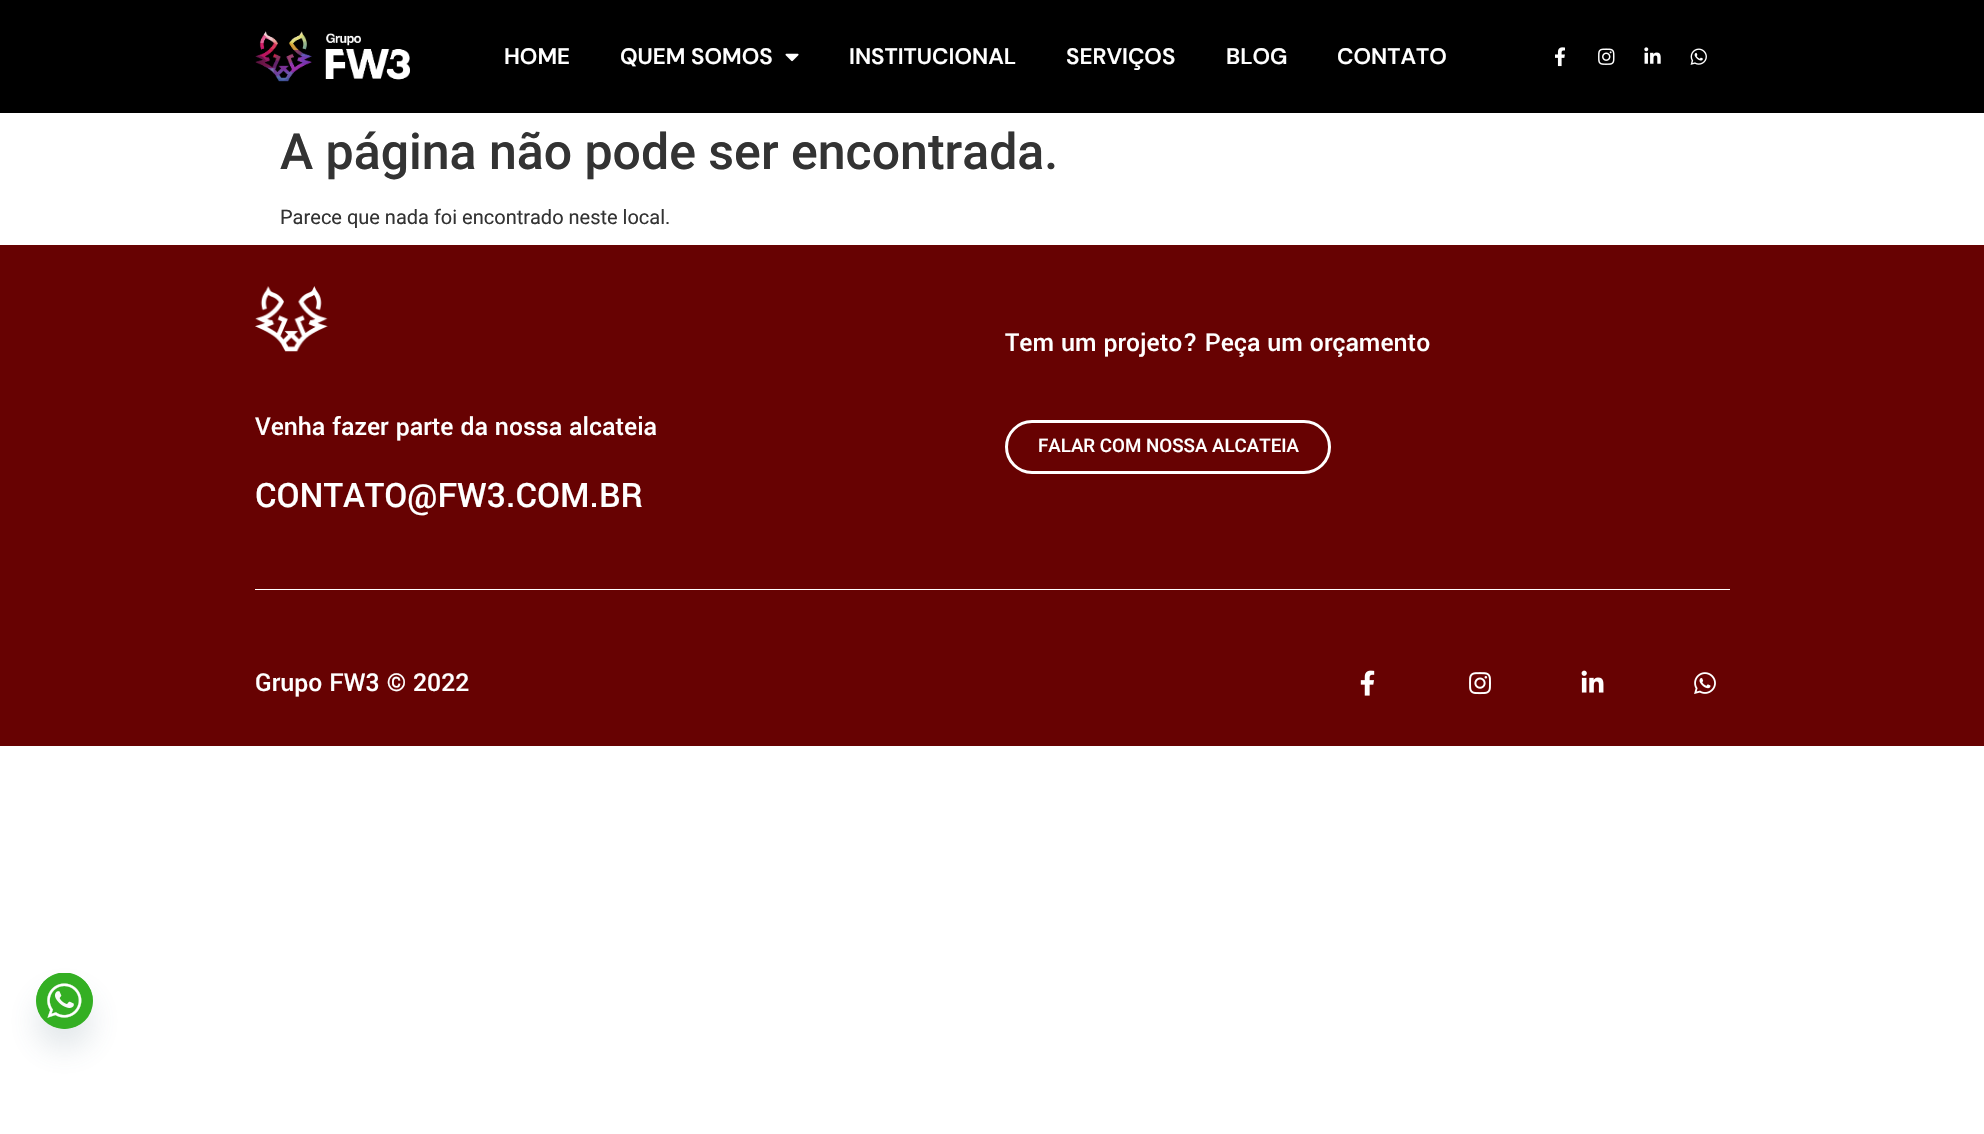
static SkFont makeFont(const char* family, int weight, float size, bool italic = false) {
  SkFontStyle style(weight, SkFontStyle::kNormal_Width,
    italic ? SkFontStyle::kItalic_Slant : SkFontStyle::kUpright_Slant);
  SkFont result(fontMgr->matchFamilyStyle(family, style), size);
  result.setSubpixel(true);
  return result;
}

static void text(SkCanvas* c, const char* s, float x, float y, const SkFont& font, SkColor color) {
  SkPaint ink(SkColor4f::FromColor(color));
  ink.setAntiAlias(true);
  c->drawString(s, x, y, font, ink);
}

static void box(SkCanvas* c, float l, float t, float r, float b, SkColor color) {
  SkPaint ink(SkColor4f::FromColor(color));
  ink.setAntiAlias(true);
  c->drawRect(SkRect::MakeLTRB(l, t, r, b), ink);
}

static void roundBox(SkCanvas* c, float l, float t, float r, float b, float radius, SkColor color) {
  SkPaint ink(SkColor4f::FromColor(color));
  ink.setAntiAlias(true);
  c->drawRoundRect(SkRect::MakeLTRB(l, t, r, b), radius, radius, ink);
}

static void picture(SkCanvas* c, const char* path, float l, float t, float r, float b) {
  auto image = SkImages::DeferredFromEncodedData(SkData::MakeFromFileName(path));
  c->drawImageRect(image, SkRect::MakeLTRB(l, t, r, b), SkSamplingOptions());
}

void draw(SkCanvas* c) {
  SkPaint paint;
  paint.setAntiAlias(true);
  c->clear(0xffffffff);
  box(c, 0, 0, 1984, 113, 0xff000000);
  picture(c, "img_01.png", 255, 31, 410, 82);
  SkFont face1 = makeFont("DM Sans", 600, 22.5f);
  text(c, "HOME", 504, 64, face1, 0xffffffff);
  text(c, "QUEM SOMOS", 620, 64, face1, 0xffffffff);
  picture(c, "img_02.png", 785, 53, 799, 62);
  text(c, "INSTITUCIONAL", 849, 64, face1, 0xffffffff);
  text(c, "SERVIÇOS", 1066, 64, face1, 0xffffffff);
  text(c, "BLOG", 1226, 64, face1, 0xffffffff);
  text(c, "CONTATO", 1337, 64, face1, 0xffffffff);
  picture(c, "img_03.png", 1555, 47, 1565, 67);
  picture(c, "img_04.png", 1598, 48, 1615, 65);
  picture(c, "img_05.png", 1644, 47, 1661, 64);
  picture(c, "img_06.png", 1690, 48, 1707, 65);
  SkFont face2 = makeFont("Roboto", 500, 50);
  text(c, "A página não pode ser encontrada.", 280, 169, face2, 0xff333333);
  SkFont face3 = makeFont("Roboto", 400, 20);
  text(c, "Parece que nada foi encontrado neste local.", 280, 224, face3, 0xff333333);
  box(c, 0, 245, 1984, 746, 0xff670202);
  SkFont face4 = makeFont("Yantramanav", 500, 27.5f);
  text(c, "Tem um projeto? Peça um orçamento", 1005, 351, face4, 0xffffffff);
  paint.setStyle(SkPaint::kStroke_Style);
  paint.setStrokeWidth(3);
  paint.setColor(0xffffffff);
  c->drawRoundRect(SkRect::MakeLTRB(1006.5f, 421.5f, 1329.5f, 472.5f), 25.5f, 25.5f, paint);
  SkFont face5 = makeFont("Roboto", 500, 18.75f);
  text(c, "FALAR COM NOSSA ALCATEIA", 1038, 452, face5, 0xffffffff);
  picture(c, "img_07.png", 255, 286, 328, 352);
  text(c, "Venha fazer parte da nossa alcateia", 255, 435, face4, 0xffffffff);
  SkFont face6 = makeFont("Yantramanav", 500, 37.5f);
  text(c, "CONTATO@FW3.COM.BR", 255, 507, face6, 0xffffffff);
  box(c, 255, 589, 1730, 590, 0xffffffff);
  text(c, "Grupo FW3 © 2022", 255, 691, face4, 0xffffffff);
  picture(c, "img_08.png", 1360, 670, 1375, 696);
  picture(c, "img_09.png", 1469, 672, 1491, 695);
  picture(c, "img_10.png", 1581, 670, 1604, 693);
  picture(c, "img_11.png", 1694, 672, 1716, 694);
  paint.setStyle(SkPaint::kFill_Style);
  paint.setColor(0x2949687e);
  paint.setMaskFilter(SkMaskFilter::MakeBlur(kNormal_SkBlurStyle, 15));
  c->drawRoundRect(SkRect::MakeLTRB(36, 993, 93, 1049), 28, 28, paint);
  paint.setMaskFilter(nullptr);
  roundBox(c, 36, 973, 93, 1029, 28, 0xff34af23);
  picture(c, "img_12.png", 36, 973, 93, 1029);
}
